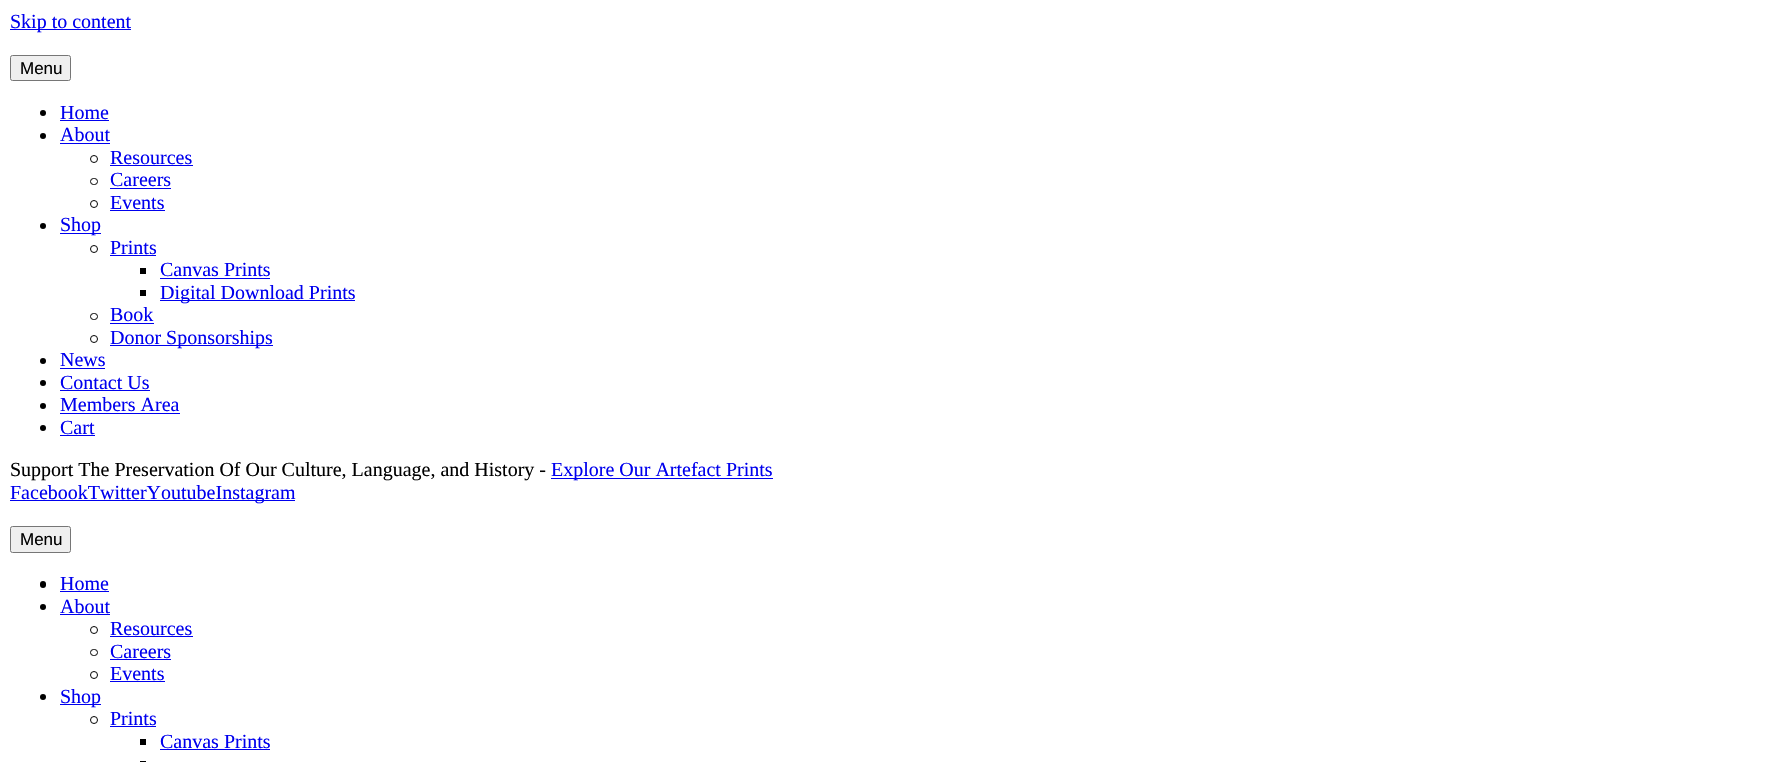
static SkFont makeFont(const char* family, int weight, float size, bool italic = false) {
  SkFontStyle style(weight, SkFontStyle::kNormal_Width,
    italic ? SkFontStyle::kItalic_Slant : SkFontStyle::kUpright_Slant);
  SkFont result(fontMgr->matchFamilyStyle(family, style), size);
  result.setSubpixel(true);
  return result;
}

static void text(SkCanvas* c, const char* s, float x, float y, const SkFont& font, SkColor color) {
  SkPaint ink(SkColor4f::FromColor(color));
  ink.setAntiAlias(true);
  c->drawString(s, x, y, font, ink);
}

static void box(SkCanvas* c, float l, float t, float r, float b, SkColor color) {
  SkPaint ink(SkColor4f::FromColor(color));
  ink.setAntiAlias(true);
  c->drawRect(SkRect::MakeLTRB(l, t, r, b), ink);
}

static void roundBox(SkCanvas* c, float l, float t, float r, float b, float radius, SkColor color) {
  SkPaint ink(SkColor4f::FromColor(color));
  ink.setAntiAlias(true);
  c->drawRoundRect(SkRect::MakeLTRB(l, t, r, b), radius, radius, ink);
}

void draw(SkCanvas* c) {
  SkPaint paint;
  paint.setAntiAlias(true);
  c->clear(0xffffffff);
  box(c, 10, 29, 131, 30, 0xff0000ee);
  SkFont face1 = makeFont("Liberation Serif", 400, 20);
  text(c, "Skip to content", 10, 28, face1, 0xff0000ee);
  paint.setColor(0xffefefef);
  c->drawRoundRect(SkRect::MakeLTRB(10.5f, 55.5f, 70.5f, 80.5f), 2, 2, paint);
  paint.setStyle(SkPaint::kStroke_Style);
  paint.setStrokeWidth(1);
  paint.setColor(0xff767676);
  c->drawRoundRect(SkRect::MakeLTRB(10.5f, 55.5f, 70.5f, 80.5f), 2, 2, paint);
  SkFont face2 = makeFont("Liberation Sans", 400, 17);
  text(c, "Menu", 20, 74, face2, 0xff000000);
  paint.setStyle(SkPaint::kFill_Style);
  paint.setColor(0xff000000);
  c->drawCircle(43, 113, 3, paint);
  text(c, "Home", 60, 119, face1, 0xff0000ee);
  box(c, 60, 120, 109, 121, 0xff0000ee);
  c->drawCircle(43, 136, 3, paint);
  text(c, "About", 60, 141, face1, 0xff0000ee);
  box(c, 60, 143, 110, 144, 0xff0000ee);
  paint.setStyle(SkPaint::kStroke_Style);
  c->drawCircle(94, 159, 3.5f, paint);
  text(c, "Resources", 110, 164, face1, 0xff0000ee);
  box(c, 110, 165, 193, 166, 0xff0000ee);
  c->drawRoundRect(SkRect::MakeLTRB(90.5f, 178.5f, 97.5f, 184.5f), 3, 3, paint);
  text(c, "Careers", 110, 186, face1, 0xff0000ee);
  box(c, 110, 188, 171, 189, 0xff0000ee);
  c->drawCircle(94, 204, 3.5f, paint);
  text(c, "Events", 110, 209, face1, 0xff0000ee);
  box(c, 110, 210, 165, 211, 0xff0000ee);
  paint.setStyle(SkPaint::kFill_Style);
  c->drawCircle(43, 226, 3, paint);
  box(c, 60, 233, 101, 234, 0xff0000ee);
  text(c, "Shop", 60, 231, face1, 0xff0000ee);
  paint.setStyle(SkPaint::kStroke_Style);
  c->drawCircle(94, 249, 3.5f, paint);
  text(c, "Prints", 110, 254, face1, 0xff0000ee);
  box(c, 110, 255, 156, 256, 0xff0000ee);
  box(c, 140, 268, 146, 274, 0xff000000);
  text(c, "Canvas Prints", 160, 276, face1, 0xff0000ee);
  box(c, 160, 278, 270, 279, 0xff0000ee);
  box(c, 140, 290, 146, 296, 0xff000000);
  box(c, 160, 300, 355, 301, 0xff0000ee);
  text(c, "Digital Download Prints", 160, 299, face1, 0xff0000ee);
  c->drawRoundRect(SkRect::MakeLTRB(90.5f, 313.5f, 97.5f, 319.5f), 3, 3, paint);
  text(c, "Book", 110, 321, face1, 0xff0000ee);
  box(c, 110, 323, 154, 324, 0xff0000ee);
  c->drawCircle(94, 339, 3.5f, paint);
  box(c, 110, 345, 273, 346, 0xff0000ee);
  text(c, "Donor Sponsorships", 110, 344, face1, 0xff0000ee);
  paint.setStyle(SkPaint::kFill_Style);
  c->drawCircle(43, 361, 3, paint);
  text(c, "News", 60, 366, face1, 0xff0000ee);
  box(c, 60, 368, 105, 369, 0xff0000ee);
  c->drawCircle(43, 383, 3, paint);
  text(c, "Contact Us", 60, 389, face1, 0xff0000ee);
  box(c, 60, 390, 150, 391, 0xff0000ee);
  c->drawCircle(43, 406, 3, paint);
  text(c, "Members Area", 60, 411, face1, 0xff0000ee);
  box(c, 60, 413, 180, 414, 0xff0000ee);
  c->drawCircle(43, 428, 3, paint);
  text(c, "Cart", 60, 434, face1, 0xff0000ee);
  box(c, 60, 435, 95, 436, 0xff0000ee);
  text(c, "Support The Preservation Of Our Culture, Language, and History -", 10, 476, face1, 0xff000000);
  box(c, 551, 478, 773, 479, 0xff0000ee);
  text(c, "Explore Our Artefact Prints", 551, 476, face1, 0xff0000ee);
  box(c, 10, 500, 295, 501, 0xff0000ee);
  text(c, "FacebookTwitterYoutubeInstagram", 10, 499, face1, 0xff0000ee);
  paint.setColor(0xffefefef);
  c->drawRoundRect(SkRect::MakeLTRB(10.5f, 526.5f, 70.5f, 552.5f), 2, 2, paint);
  paint.setStyle(SkPaint::kStroke_Style);
  paint.setColor(0xff767676);
  c->drawRoundRect(SkRect::MakeLTRB(10.5f, 526.5f, 70.5f, 552.5f), 2, 2, paint);
  text(c, "Menu", 20, 545, face2, 0xff000000);
  roundBox(c, 40, 581, 46, 588, 3, 0xff000000);
  text(c, "Home", 60, 590, face1, 0xff0000ee);
  box(c, 60, 591, 109, 592, 0xff0000ee);
  paint.setStyle(SkPaint::kFill_Style);
  paint.setColor(0xff000000);
  c->drawCircle(43, 607, 3, paint);
  text(c, "About", 60, 613, face1, 0xff0000ee);
  box(c, 60, 614, 110, 615, 0xff0000ee);
  paint.setStyle(SkPaint::kStroke_Style);
  c->drawCircle(94, 630, 3.5f, paint);
  text(c, "Resources", 110, 635, face1, 0xff0000ee);
  box(c, 110, 636, 193, 637, 0xff0000ee);
  c->drawRoundRect(SkRect::MakeLTRB(90.5f, 649.5f, 97.5f, 655.5f), 3, 3, paint);
  text(c, "Careers", 110, 658, face1, 0xff0000ee);
  box(c, 110, 659, 171, 660, 0xff0000ee);
  c->drawCircle(94, 675, 3.5f, paint);
  text(c, "Events", 110, 680, face1, 0xff0000ee);
  box(c, 110, 681, 165, 682, 0xff0000ee);
  paint.setStyle(SkPaint::kFill_Style);
  c->drawCircle(43, 697, 3, paint);
  box(c, 60, 704, 101, 705, 0xff0000ee);
  text(c, "Shop", 60, 703, face1, 0xff0000ee);
  paint.setStyle(SkPaint::kStroke_Style);
  c->drawCircle(94, 720, 3.5f, paint);
  text(c, "Prints", 110, 725, face1, 0xff0000ee);
  box(c, 110, 726, 156, 727, 0xff0000ee);
  box(c, 140, 739, 146, 745, 0xff000000);
  text(c, "Canvas Prints", 160, 748, face1, 0xff0000ee);
  box(c, 160, 749, 270, 750, 0xff0000ee);
  box(c, 140, 761, 146, 762, 0xff000000);
}
